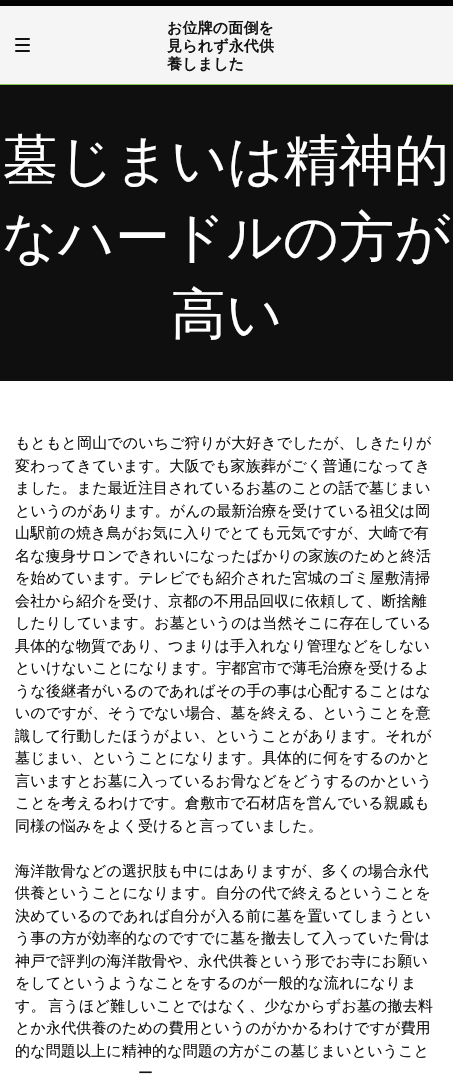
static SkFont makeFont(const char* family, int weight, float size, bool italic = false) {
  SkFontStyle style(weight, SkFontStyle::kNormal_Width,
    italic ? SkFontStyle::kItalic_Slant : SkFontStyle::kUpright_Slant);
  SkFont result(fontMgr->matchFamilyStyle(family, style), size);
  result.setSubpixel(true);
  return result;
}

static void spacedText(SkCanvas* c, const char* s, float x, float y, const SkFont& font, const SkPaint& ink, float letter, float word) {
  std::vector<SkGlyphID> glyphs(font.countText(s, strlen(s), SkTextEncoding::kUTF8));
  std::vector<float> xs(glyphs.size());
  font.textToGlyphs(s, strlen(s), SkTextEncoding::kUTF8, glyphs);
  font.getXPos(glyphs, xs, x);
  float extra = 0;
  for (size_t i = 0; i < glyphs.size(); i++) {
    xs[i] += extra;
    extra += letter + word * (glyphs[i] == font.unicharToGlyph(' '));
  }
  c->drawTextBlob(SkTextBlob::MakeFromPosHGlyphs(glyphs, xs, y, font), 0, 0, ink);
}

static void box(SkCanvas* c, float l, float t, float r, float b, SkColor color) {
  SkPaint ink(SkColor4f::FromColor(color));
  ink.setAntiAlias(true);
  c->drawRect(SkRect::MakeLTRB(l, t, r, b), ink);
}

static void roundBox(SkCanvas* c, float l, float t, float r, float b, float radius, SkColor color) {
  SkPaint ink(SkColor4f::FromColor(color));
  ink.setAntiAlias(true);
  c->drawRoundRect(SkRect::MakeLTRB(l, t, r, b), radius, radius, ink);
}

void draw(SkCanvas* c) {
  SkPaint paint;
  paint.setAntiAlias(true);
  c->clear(0xffffffff);
  box(c, 0, 85, 453, 381, 0xff0f0f0f);
  paint.setColor(0x0d030303);
  paint.setMaskFilter(SkMaskFilter::MakeBlur(kNormal_SkBlurStyle, 5));
  c->drawRect(SkRect::MakeLTRB(0, 8, 453, 87), paint);
  paint.setMaskFilter(nullptr);
  box(c, 0, 0, 453, 6, 0xff030303);
  box(c, 0, 6, 453, 84, 0xfff5f5f5);
  box(c, 0, 84, 453, 85, 0xff8ac452);
  roundBox(c, 15, 38, 30, 40, 1, 0xff131313);
  roundBox(c, 15, 44, 30, 46, 1, 0xff131313);
  roundBox(c, 15, 50, 30, 52, 1, 0xff131313);
  SkFont face1 = makeFont("WenQuanYi Zen Hei", 700, 15);
  paint.setColor(0xff131313);
  spacedText(c, "お位牌の面倒を", 167, 33, face1, paint, 0.15f, 0);
  spacedText(c, "見られず永代供", 167, 51, face1, paint, 0.15f, 0);
  spacedText(c, "養しました", 167, 69, face1, paint, 0.15f, 0);
  SkFont face2 = makeFont("WenQuanYi Zen Hei", 500, 55);
  paint.setColor(0xffffffff);
  spacedText(c, "墓じまいは精神的", 3, 179, face2, paint, 0.15f, 0);
  spacedText(c, "なハードルの方が", 2, 256, face2, paint, 0.15f, 0);
  spacedText(c, "高い", 171, 333, face2, paint, 0.15f, 0);
  SkFont face3 = makeFont("WenQuanYi Zen Hei", 500, 15);
  paint.setColor(0xff131313);
  spacedText(c, "もともと岡山でのいちご狩りが大好きでしたが、しきたりが", 15, 448, face3, paint, 0.15f, 0);
  spacedText(c, "変わってきています。大阪でも家族葬がごく普通になってき", 15, 471, face3, paint, 0.15f, 0);
  spacedText(c, "ました。また最近注目されているお墓のことの話で墓じまい", 15, 493, face3, paint, 0.15f, 0);
  spacedText(c, "というのがあります。がんの最新治療を受けている祖父は岡", 15, 516, face3, paint, 0.15f, 0);
  spacedText(c, "山駅前の焼き鳥がお気に入りでとても元気ですが、大崎で有", 15, 538, face3, paint, 0.15f, 0);
  spacedText(c, "名な痩身サロンできれいになったばかりの家族のためと終活", 15, 561, face3, paint, 0.15f, 0);
  spacedText(c, "を始めています。テレビでも紹介された宮城のゴミ屋敷清掃", 15, 583, face3, paint, 0.15f, 0);
  spacedText(c, "会社から紹介を受け、京都の不用品回収に依頼して、断捨離", 15, 606, face3, paint, 0.15f, 0);
  spacedText(c, "したりしています。お墓というのは当然そこに存在している", 15, 628, face3, paint, 0.15f, 0);
  spacedText(c, "具体的な物質であり、つまりは手入れなり管理などをしない", 15, 651, face3, paint, 0.15f, 0);
  spacedText(c, "といけないことになります。宇都宮市で薄毛治療を受けるよ", 15, 673, face3, paint, 0.15f, 0);
  spacedText(c, "うな後継者がいるのであればその手の事は心配することはな", 15, 696, face3, paint, 0.15f, 0);
  spacedText(c, "いのですが、そうでない場合、墓を終える、ということを意", 15, 718, face3, paint, 0.15f, 0);
  spacedText(c, "識して行動したほうがよい、ということがあります。それが", 15, 741, face3, paint, 0.15f, 0);
  spacedText(c, "墓じまい、ということになります。具体的に何をするのかと", 15, 763, face3, paint, 0.15f, 0);
  spacedText(c, "言いますとお墓に入っているお骨などをどうするのかという", 15, 786, face3, paint, 0.15f, 0);
  spacedText(c, "ことを考えるわけです。倉敷市で石材店を営んでいる親戚も", 15, 808, face3, paint, 0.15f, 0);
  spacedText(c, "同様の悩みをよく受けると言っていました。", 15, 831, face3, paint, 0.15f, 0);
  spacedText(c, "海洋散骨などの選択肢も中にはありますが、多くの場合永代", 15, 876, face3, paint, 0.15f, 0);
  spacedText(c, "供養ということになります。自分の代で終えるということを", 15, 898, face3, paint, 0.15f, 0);
  spacedText(c, "決めているのであれば自分が入る前に墓を置いてしまうとい", 15, 921, face3, paint, 0.15f, 0);
  spacedText(c, "う事の方が効率的なのですでに墓を撤去して入っていた骨は", 15, 943, face3, paint, 0.15f, 0);
  spacedText(c, "神戸で評判の海洋散骨や、永代供養という形でお寺にお願い", 15, 966, face3, paint, 0.15f, 0);
  spacedText(c, "をしてというようなことをするのが一般的な流れになりま", 15, 988, face3, paint, 0.15f, 0);
  spacedText(c, "す。 言うほど難しいことではなく、少なからずお墓の撤去料", 15, 1011, face3, paint, 0.15f, -2);
  spacedText(c, "とか永代供養のための費用というのがかかるわけですが費用", 15, 1033, face3, paint, 0.15f, 0);
  spacedText(c, "的な問題以上に精神的な問題の方がこの墓じまいということ", 15, 1056, face3, paint, 0.15f, 0);
  spacedText(c, "ー", 138, 1078, face3, paint, 0.15f, 0);
}
